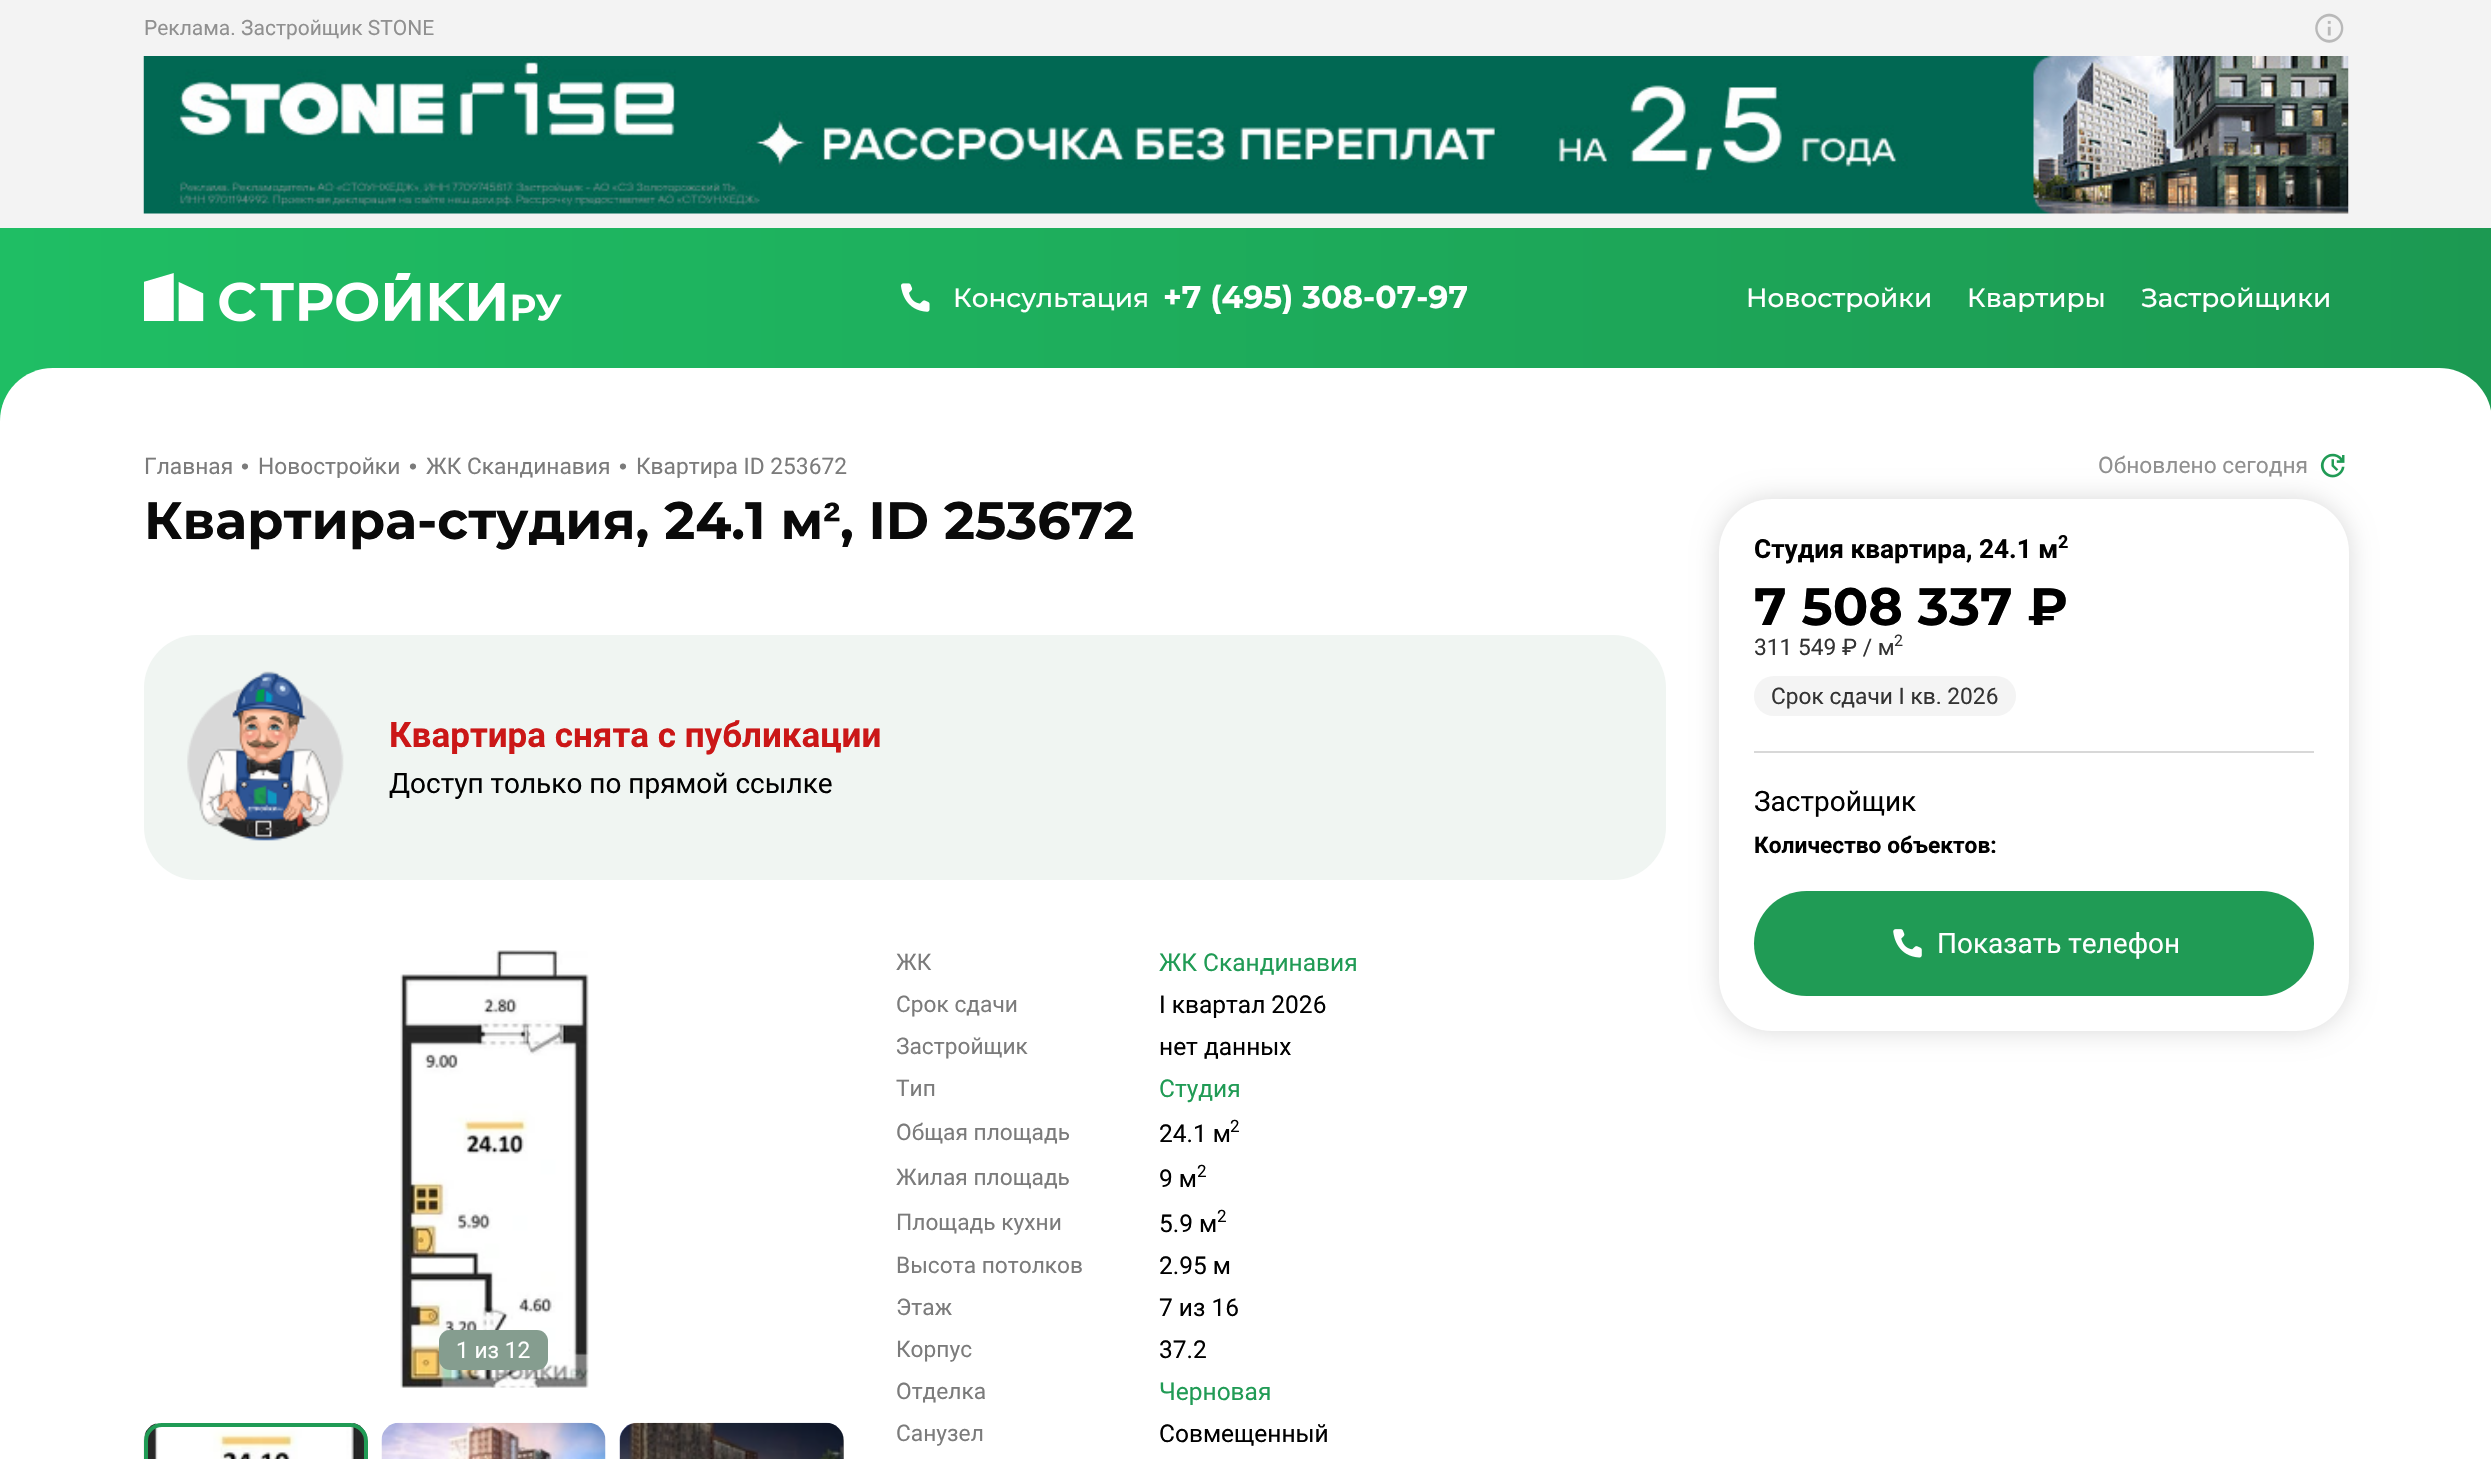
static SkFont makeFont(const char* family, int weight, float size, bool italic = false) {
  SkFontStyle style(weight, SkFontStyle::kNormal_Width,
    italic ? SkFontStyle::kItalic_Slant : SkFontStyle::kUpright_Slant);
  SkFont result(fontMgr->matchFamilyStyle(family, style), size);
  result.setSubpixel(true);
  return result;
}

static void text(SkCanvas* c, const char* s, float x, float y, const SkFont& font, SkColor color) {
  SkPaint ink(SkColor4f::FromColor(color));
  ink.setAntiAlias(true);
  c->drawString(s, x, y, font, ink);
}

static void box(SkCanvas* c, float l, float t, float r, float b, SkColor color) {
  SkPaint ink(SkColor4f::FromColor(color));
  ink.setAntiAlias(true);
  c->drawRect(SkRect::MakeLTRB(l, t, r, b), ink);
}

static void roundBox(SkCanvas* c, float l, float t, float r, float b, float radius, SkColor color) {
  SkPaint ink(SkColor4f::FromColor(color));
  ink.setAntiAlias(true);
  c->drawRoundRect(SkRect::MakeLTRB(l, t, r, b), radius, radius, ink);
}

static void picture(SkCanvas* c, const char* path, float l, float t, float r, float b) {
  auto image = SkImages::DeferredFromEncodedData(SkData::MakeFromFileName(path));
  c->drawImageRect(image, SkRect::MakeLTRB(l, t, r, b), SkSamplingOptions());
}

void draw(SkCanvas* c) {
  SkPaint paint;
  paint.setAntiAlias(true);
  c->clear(0xffffffff);
  {
    const SkColor colors[] = {0xff1c9952, 0xff1fbe64};
    const float stops[] = {0, 1};
    const SkPoint ends[] = {{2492, 730}, {0, 730}};
    paint.setShader(SkGradientShader::MakeLinear(ends, colors, stops, 2, SkTileMode::kClamp));
    paint.setAlpha(255);
  }
  c->drawRect(SkRect::MakeLTRB(0, 228, 2491, 421), paint);
  box(c, 0, 0, 2491, 228, 0xfff3f3f3);
  SkFont face1 = makeFont("Roboto", 400, 21);
  text(c, "Реклама. Застройщик STONE", 144, 35, face1, 0xff909090);
  picture(c, "img_01.png", 2315, 13, 2344, 43);
  picture(c, "img_02.png", 143, 56, 2349, 214);
  picture(c, "img_03.png", 144, 273, 562, 322);
  picture(c, "img_04.png", 901, 283, 930, 312);
  SkFont face2 = makeFont("Montserrat", 500, 26.25f);
  text(c, "Консультация", 953, 307, face2, 0xffffffff);
  SkFont face3 = makeFont("Montserrat", 700, 31.5f);
  text(c, "+7 (495) 308-07-97", 1163, 308, face3, 0xffffffff);
  text(c, "Новостройки", 1746, 307, face2, 0xffffffff);
  text(c, "Квартиры", 1967, 307, face2, 0xffffffff);
  text(c, "Застройщики", 2141, 307, face2, 0xffffffff);
  paint.setShader(nullptr);
  paint.setColor(0xffffffff);
  c->drawPath(SkPathBuilder().moveTo(53, 368).lineTo(2439, 368).cubicTo(2468.5f, 368, 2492, 391.5f, 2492, 421).lineTo(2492, 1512).lineTo(0, 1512).lineTo(0, 421).cubicTo(0, 391.5f, 23.5f, 368, 53, 368).close().detach(), paint);
  SkFont face4 = makeFont("Roboto", 400, 22.75f);
  text(c, "Главная", 144, 474, face4, 0xff7b7b7b);
  SkFont face5 = makeFont("Liberation Sans", 400, 22.75f);
  text(c, "•", 241, 474, face5, 0xff7b7b7b);
  c->save();
  c->clipRect(SkRect::MakeLTRB(144, 420, 1666, 478));
  text(c, "Новостройки", 258, 474, face4, 0xff7b7b7b);
  c->restore();
  text(c, "•", 409, 474, face5, 0xff7b7b7b);
  text(c, "ЖК Скандинавия", 426, 474, face4, 0xff7b7b7b);
  text(c, "•", 619, 474, face5, 0xff7b7b7b);
  c->save();
  c->clipRect(SkRect::MakeLTRB(144, 420, 1666, 478));
  text(c, "Квартира ID 253672", 636, 474, face4, 0xff7b7b7b);
  c->restore();
  SkFont face6 = makeFont("Montserrat", 700, 52.5f);
  text(c, "Квартира-студия, 24.1 м", 144, 539, face6, 0xff0a0a0a);
  SkFont face7 = makeFont("Liberation Sans", 700, 52.5f);
  text(c, "²", 823, 539, face7, 0xff0a0a0a);
  text(c, ", ID 253672", 840, 539, face6, 0xff0a0a0a);
  roundBox(c, 144, 635, 1666, 880, 53, 0xfff0f5f2);
  picture(c, "img_05.png", 187, 671, 344, 841);
  SkFont face8 = makeFont("Roboto", 700, 35);
  text(c, "Квартира снята с публикации", 389, 747, face8, 0xffcb1717);
  SkFont face9 = makeFont("Roboto", 400, 28);
  text(c, "Доступ только по прямой ссылке", 389, 793, face9, 0xff000000);
  picture(c, "img_06.png", 400, 950, 589, 1388);
  roundBox(c, 439, 1330, 548, 1370, 11, 0xff859d8f);
  text(c, "1 из 12", 456, 1358, face4, 0xffffffff);
  picture(c, "img_07.png", 143, 1423, 368, 1459);
  paint.setStyle(SkPaint::kStroke_Style);
  paint.setStrokeWidth(4);
  paint.setColor(0xff209b55);
  c->drawRoundRect(SkRect::MakeLTRB(146, 1425, 366, 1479), 16, 16, paint);
  picture(c, "img_08.png", 381, 1422, 606, 1459);
  picture(c, "img_09.png", 619, 1422, 844, 1459);
  roundBox(c, 620, 1423, 844, 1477, 18, 0x80000000);
  text(c, "ЖК", 896, 970, face4, 0xff7b7b7b);
  SkFont face10 = makeFont("Roboto", 400, 24.5f);
  text(c, "ЖК Скандинавия", 1159, 971, face10, 0xff209b55);
  text(c, "Срок сдачи", 896, 1012, face4, 0xff7b7b7b);
  text(c, "I квартал 2026", 1159, 1013, face10, 0xff000000);
  text(c, "Застройщик", 896, 1054, face4, 0xff7b7b7b);
  text(c, "нет данных", 1159, 1055, face10, 0xff000000);
  text(c, "Тип", 896, 1096, face4, 0xff7b7b7b);
  text(c, "Студия", 1159, 1097, face10, 0xff209b55);
  text(c, "Общая площадь", 896, 1140, face4, 0xff7b7b7b);
  text(c, "24.1 м", 1159, 1142, face10, 0xff000000);
  SkFont face11 = makeFont("Roboto", 400, 17);
  text(c, "2", 1230, 1132, face11, 0xff000000);
  text(c, "Жилая площадь", 896, 1185, face4, 0xff7b7b7b);
  text(c, "9 м", 1159, 1187, face10, 0xff000000);
  text(c, "2", 1197, 1177, face11, 0xff000000);
  text(c, "Площадь кухни", 896, 1230, face4, 0xff7b7b7b);
  text(c, "5.9 м", 1159, 1232, face10, 0xff000000);
  text(c, "2", 1217, 1222, face11, 0xff000000);
  text(c, "Высота потолков", 896, 1273, face4, 0xff7b7b7b);
  text(c, "2.95 м", 1159, 1274, face10, 0xff000000);
  text(c, "Этаж", 896, 1315, face4, 0xff7b7b7b);
  text(c, "7 из 16", 1159, 1316, face10, 0xff000000);
  text(c, "Корпус", 896, 1357, face4, 0xff7b7b7b);
  text(c, "37.2", 1159, 1358, face10, 0xff000000);
  text(c, "Отделка", 896, 1399, face4, 0xff7b7b7b);
  text(c, "Черновая", 1159, 1400, face10, 0xff209b55);
  text(c, "Санузел", 896, 1441, face4, 0xff7b7b7b);
  text(c, "Совмещенный", 1159, 1442, face10, 0xff000000);
  text(c, "Обновлено сегодня", 2098, 473, face4, 0xff909090);
  picture(c, "img_10.png", 2320, 453, 2345, 478);
  paint.setStyle(SkPaint::kFill_Style);
  paint.setColor(0x26000000);
  paint.setMaskFilter(SkMaskFilter::MakeBlur(kNormal_SkBlurStyle, 13));
  c->drawRoundRect(SkRect::MakeLTRB(1719, 499, 2349, 1031), 53, 53, paint);
  paint.setMaskFilter(nullptr);
  roundBox(c, 1719, 499, 2349, 1031, 53, 0xffffffff);
  SkFont face12 = makeFont("Roboto", 700, 26.25f);
  text(c, "Студия квартира, 24.1 м", 1754, 558, face12, 0xff000000);
  SkFont face13 = makeFont("Roboto", 700, 18);
  text(c, "2", 2058, 548, face13, 0xff000000);
  text(c, "7 508 337 ₽", 1754, 625, face6, 0xff000000);
  text(c, "311 549 ₽ / м", 1754, 655, face4, 0xff333333);
  SkFont face14 = makeFont("Roboto", 400, 16);
  text(c, "2", 1894, 646, face14, 0xff333333);
  roundBox(c, 1754, 676, 2016, 716, 20, 0xfff4f4f4);
  text(c, "Срок сдачи I кв. 2026", 1771, 704, face4, 0xff333333);
  box(c, 1754, 751, 2314, 753, 0xffd8d8d8);
  text(c, "Застройщик", 1754, 811, face9, 0xff000000);
  SkFont face15 = makeFont("Roboto", 700, 22.75f);
  text(c, "Количество объектов:", 1754, 853, face15, 0xff000000);
  roundBox(c, 1754, 891, 2314, 996, 52.5f, 0xff209b55);
  picture(c, "img_11.png", 1893, 929, 1922, 958);
  text(c, "Показать телефон", 1937, 953, face9, 0xffffffff);
}
